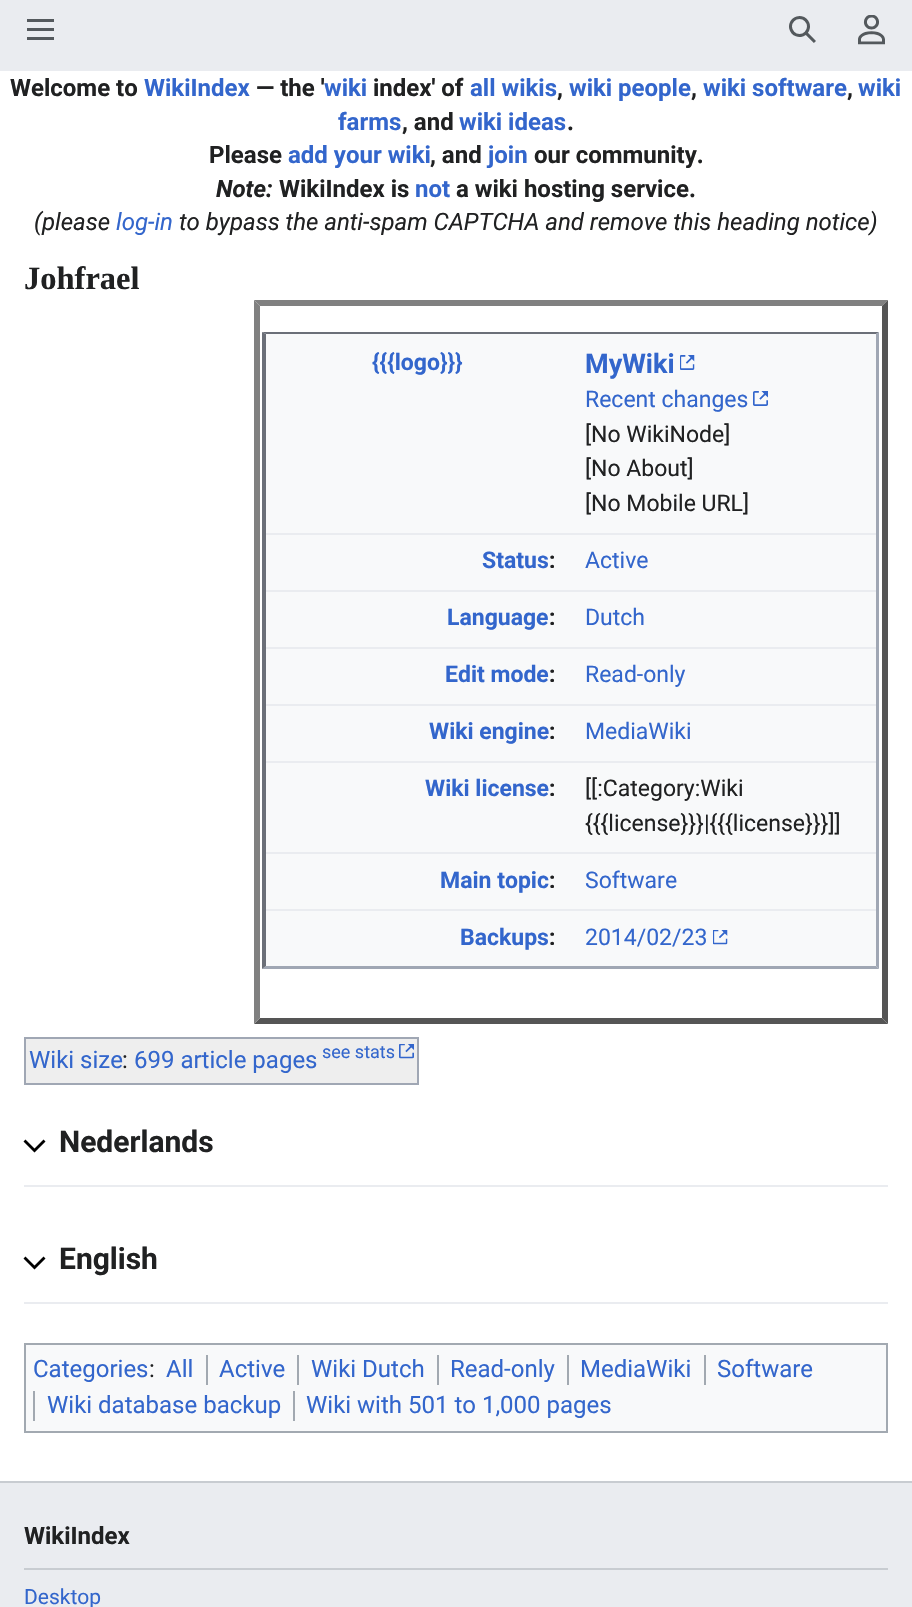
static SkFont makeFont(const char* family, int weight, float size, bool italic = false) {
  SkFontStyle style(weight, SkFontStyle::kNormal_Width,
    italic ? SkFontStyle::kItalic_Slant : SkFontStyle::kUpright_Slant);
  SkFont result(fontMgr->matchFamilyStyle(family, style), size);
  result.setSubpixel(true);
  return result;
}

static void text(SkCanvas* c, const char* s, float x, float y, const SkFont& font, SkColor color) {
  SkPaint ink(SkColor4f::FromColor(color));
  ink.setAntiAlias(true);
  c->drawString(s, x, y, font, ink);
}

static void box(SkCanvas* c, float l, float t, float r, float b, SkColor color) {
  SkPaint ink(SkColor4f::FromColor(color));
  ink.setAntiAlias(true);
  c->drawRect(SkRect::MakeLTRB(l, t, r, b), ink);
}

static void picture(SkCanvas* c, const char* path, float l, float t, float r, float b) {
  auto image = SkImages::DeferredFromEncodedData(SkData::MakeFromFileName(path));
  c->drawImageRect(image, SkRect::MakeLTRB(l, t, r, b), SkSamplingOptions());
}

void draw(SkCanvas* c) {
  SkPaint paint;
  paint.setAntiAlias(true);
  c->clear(0xffeaecf0);
  picture(c, "img_01.png", 27, 19, 54, 40);
  picture(c, "img_02.png", 789, 16, 816, 43);
  picture(c, "img_03.png", 858, 15, 885, 45);
  box(c, 0, 71, 912, 1481, 0xffffffff);
  SkFont face1 = makeFont("Roboto", 700, 24);
  text(c, "Welcome to", 10, 96, face1, 0xff202122);
  text(c, "WikiIndex", 144, 96, face1, 0xff3366cc);
  text(c, "— the '", 256, 96, face1, 0xff202122);
  text(c, "wiki", 324, 96, face1, 0xff3366cc);
  text(c, "index' of", 373, 96, face1, 0xff202122);
  text(c, "all wikis", 470, 96, face1, 0xff3366cc);
  text(c, "wiki people", 569, 96, face1, 0xff3366cc);
  text(c, "wiki software", 703, 96, face1, 0xff3366cc);
  text(c, "wiki", 858, 96, face1, 0xff3366cc);
  text(c, ",", 557, 96, face1, 0xff202122);
  text(c, ",", 691, 96, face1, 0xff202122);
  text(c, ",", 847, 96, face1, 0xff202122);
  text(c, "farms", 338, 130, face1, 0xff3366cc);
  text(c, ", and", 402, 130, face1, 0xff202122);
  text(c, "wiki ideas", 459, 130, face1, 0xff3366cc);
  text(c, ".", 567, 130, face1, 0xff202122);
  text(c, "Please", 209, 163, face1, 0xff202122);
  text(c, "add your wiki", 288, 163, face1, 0xff3366cc);
  text(c, ", and", 430, 163, face1, 0xff202122);
  text(c, "join", 488, 163, face1, 0xff3366cc);
  text(c, "our community.", 534, 163, face1, 0xff202122);
  SkFont face2 = makeFont("Roboto", 700, 24, true);
  text(c, "Note:", 216, 197, face2, 0xff202122);
  text(c, "WikiIndex is", 279, 197, face1, 0xff202122);
  text(c, "not", 415, 197, face1, 0xff3366cc);
  text(c, "a wiki hosting service.", 456, 197, face1, 0xff202122);
  SkFont face3 = makeFont("Roboto", 400, 24, true);
  text(c, "(please", 34, 230, face3, 0xff202122);
  text(c, "log-in", 116, 230, face3, 0xff3366cc);
  text(c, "to bypass the anti-spam CAPTCHA and remove this heading notice)", 179, 230, face3, 0xff202122);
  SkFont face4 = makeFont("Liberation Serif", 700, 32.5f);
  text(c, "Johfrael", 24, 289, face4, 0xff202122);
  paint.setColor(0xff808080);
  c->drawPath(SkPathBuilder().moveTo(254, 300).lineTo(888, 300).lineTo(882, 306).lineTo(260, 306).close().detach(), paint);
  paint.setColor(0xff555555);
  c->drawPath(SkPathBuilder().moveTo(888, 300).lineTo(888, 1024).lineTo(882, 1018).lineTo(882, 306).close().detach(), paint);
  c->drawPath(SkPathBuilder().moveTo(888, 1024).lineTo(254, 1024).lineTo(260, 1018).lineTo(882, 1018).close().detach(), paint);
  paint.setColor(0xff808080);
  c->drawPath(SkPathBuilder().moveTo(254, 1024).lineTo(254, 300).lineTo(260, 306).lineTo(260, 1018).close().detach(), paint);
  box(c, 263, 332, 879, 969, 0xfff8f9fa);
  paint.setColor(0xff6b6f78);
  c->drawPath(SkPathBuilder().moveTo(262, 332).lineTo(879, 332).lineTo(876, 334).lineTo(266, 334).close().detach(), paint);
  paint.setColor(0xffa0a7b4);
  c->drawPath(SkPathBuilder().moveTo(879, 332).lineTo(879, 969).lineTo(876, 966).lineTo(876, 334).close().detach(), paint);
  c->drawPath(SkPathBuilder().moveTo(879, 969).lineTo(262, 969).lineTo(266, 966).lineTo(876, 966).close().detach(), paint);
  paint.setColor(0xff6b6f78);
  c->drawPath(SkPathBuilder().moveTo(262, 969).lineTo(262, 332).lineTo(266, 334).lineTo(266, 966).close().detach(), paint);
  box(c, 266, 533, 876, 535, 0xffeaecf0);
  SkFont face5 = makeFont("Roboto", 700, 23);
  text(c, "{{{logo}}}", 372, 370, face5, 0xff3366cc);
  SkFont face6 = makeFont("Roboto", 700, 27);
  text(c, "MyWiki", 585, 373, face6, 0xff3366cc);
  picture(c, "img_04.png", 680, 355, 695, 370);
  SkFont face7 = makeFont("Roboto", 400, 23);
  text(c, "Recent changes", 585, 407, face7, 0xff3366cc);
  picture(c, "img_05.png", 753, 391, 768, 406);
  text(c, "[No WikiNode]", 585, 442, face7, 0xff202122);
  text(c, "[No About]", 585, 476, face7, 0xff202122);
  text(c, "[No Mobile URL]", 585, 511, face7, 0xff202122);
  box(c, 266, 590, 876, 592, 0xffeaecf0);
  text(c, "Status", 482, 568, face5, 0xff3366cc);
  text(c, ":", 549, 568, face5, 0xff202122);
  text(c, "Active", 585, 568, face7, 0xff3366cc);
  box(c, 266, 647, 876, 649, 0xffeaecf0);
  text(c, "Language", 447, 625, face5, 0xff3366cc);
  text(c, ":", 549, 625, face5, 0xff202122);
  text(c, "Dutch", 585, 625, face7, 0xff3366cc);
  box(c, 266, 704, 876, 706, 0xffeaecf0);
  text(c, "Edit mode", 445, 682, face5, 0xff3366cc);
  text(c, ":", 549, 682, face5, 0xff202122);
  text(c, "Read-only", 585, 682, face7, 0xff3366cc);
  box(c, 266, 761, 876, 763, 0xffeaecf0);
  text(c, "Wiki engine", 429, 739, face5, 0xff3366cc);
  text(c, ":", 549, 739, face5, 0xff202122);
  text(c, "MediaWiki", 585, 739, face7, 0xff3366cc);
  box(c, 266, 852, 876, 854, 0xffeaecf0);
  text(c, "Wiki license", 425, 796, face5, 0xff3366cc);
  text(c, ":", 549, 796, face5, 0xff202122);
  text(c, "[[:Category:Wiki", 585, 796, face7, 0xff202122);
  text(c, "{{{license}}}|{{{license}}}]]", 585, 831, face7, 0xff202122);
  box(c, 266, 909, 876, 911, 0xffeaecf0);
  text(c, "Main topic", 440, 888, face5, 0xff3366cc);
  text(c, ":", 549, 888, face5, 0xff202122);
  text(c, "Software", 585, 888, face7, 0xff3366cc);
  text(c, "Backups", 460, 945, face5, 0xff3366cc);
  text(c, ":", 549, 945, face5, 0xff202122);
  text(c, "2014/02/23", 585, 945, face7, 0xff3366cc);
  picture(c, "img_06.png", 713, 930, 728, 945);
  paint.setColor(0xffeeeeee);
  c->drawRect(SkRect::MakeLTRB(25, 1038, 418, 1084), paint);
  paint.setStyle(SkPaint::kStroke_Style);
  paint.setStrokeWidth(2);
  paint.setColor(0xffa0a7b4);
  c->drawRect(SkRect::MakeLTRB(25, 1038, 418, 1084), paint);
  SkFont face8 = makeFont("Roboto", 400, 24);
  text(c, "Wiki size", 29, 1068, face8, 0xff3366cc);
  text(c, ":", 122, 1068, face8, 0xff202122);
  text(c, "699 article pages", 134, 1068, face8, 0xff3366cc);
  SkFont face9 = makeFont("Roboto", 400, 18);
  text(c, "see stats", 322, 1058, face9, 0xff3366cc);
  picture(c, "img_07.png", 399, 1044, 414, 1059);
  box(c, 24, 1185, 888, 1187, 0xffeaecf0);
  paint.setStyle(SkPaint::kFill_Style);
  paint.setColor(0xff000000);
  c->drawPath(SkPathBuilder().moveTo(43.5f, 1139.5f).lineTo(34.5f, 1148.5f).lineTo(25.5f, 1139.5f).lineTo(23.5f, 1141.5f).lineTo(34.5f, 1152.5f).lineTo(45.5f, 1141.5f).close().detach(), paint);
  SkFont face10 = makeFont("Roboto", 700, 30);
  text(c, "Nederlands", 59, 1152, face10, 0xff202122);
  box(c, 24, 1302, 888, 1304, 0xffeaecf0);
  c->drawPath(SkPathBuilder().moveTo(43.5f, 1256.5f).lineTo(34.5f, 1265.5f).lineTo(25.5f, 1256.5f).lineTo(23.5f, 1258.5f).lineTo(34.5f, 1269.5f).lineTo(45.5f, 1258.5f).close().detach(), paint);
  text(c, "English", 59, 1269, face10, 0xff202122);
  paint.setColor(0xfff8f9fa);
  c->drawRect(SkRect::MakeLTRB(25, 1344, 887, 1432), paint);
  paint.setStyle(SkPaint::kStroke_Style);
  paint.setColor(0xffa2a9b1);
  c->drawRect(SkRect::MakeLTRB(25, 1344, 887, 1432), paint);
  text(c, "All", 166, 1377, face8, 0xff3366cc);
  box(c, 206, 1355, 208, 1385, 0xffa2a9b1);
  text(c, "Active", 219, 1377, face8, 0xff3366cc);
  box(c, 297, 1355, 299, 1385, 0xffa2a9b1);
  text(c, "Wiki Dutch", 311, 1377, face8, 0xff3366cc);
  box(c, 437, 1355, 439, 1385, 0xffa2a9b1);
  text(c, "Read-only", 450, 1377, face8, 0xff3366cc);
  box(c, 567, 1355, 569, 1385, 0xffa2a9b1);
  text(c, "MediaWiki", 580, 1377, face8, 0xff3366cc);
  box(c, 704, 1355, 706, 1385, 0xffa2a9b1);
  text(c, "Software", 717, 1377, face8, 0xff3366cc);
  box(c, 33, 1391, 35, 1421, 0xffa2a9b1);
  text(c, "Wiki database backup", 47, 1413, face8, 0xff3366cc);
  box(c, 293, 1391, 295, 1421, 0xffa2a9b1);
  text(c, "Wiki with 501 to 1,000 pages", 306, 1413, face8, 0xff3366cc);
  text(c, "Categories", 33, 1377, face8, 0xff3366cc);
  text(c, ":", 149, 1377, face8, 0xff202122);
  box(c, 0, 1481, 912, 1483, 0xffc8ccd1);
  box(c, 24, 1568, 888, 1570, 0xffc8ccd1);
  text(c, "WikiIndex", 24, 1544, face1, 0xff202122);
  SkFont face11 = makeFont("Roboto", 400, 21);
  text(c, "Desktop", 24, 1604, face11, 0xff3366cc);
}
